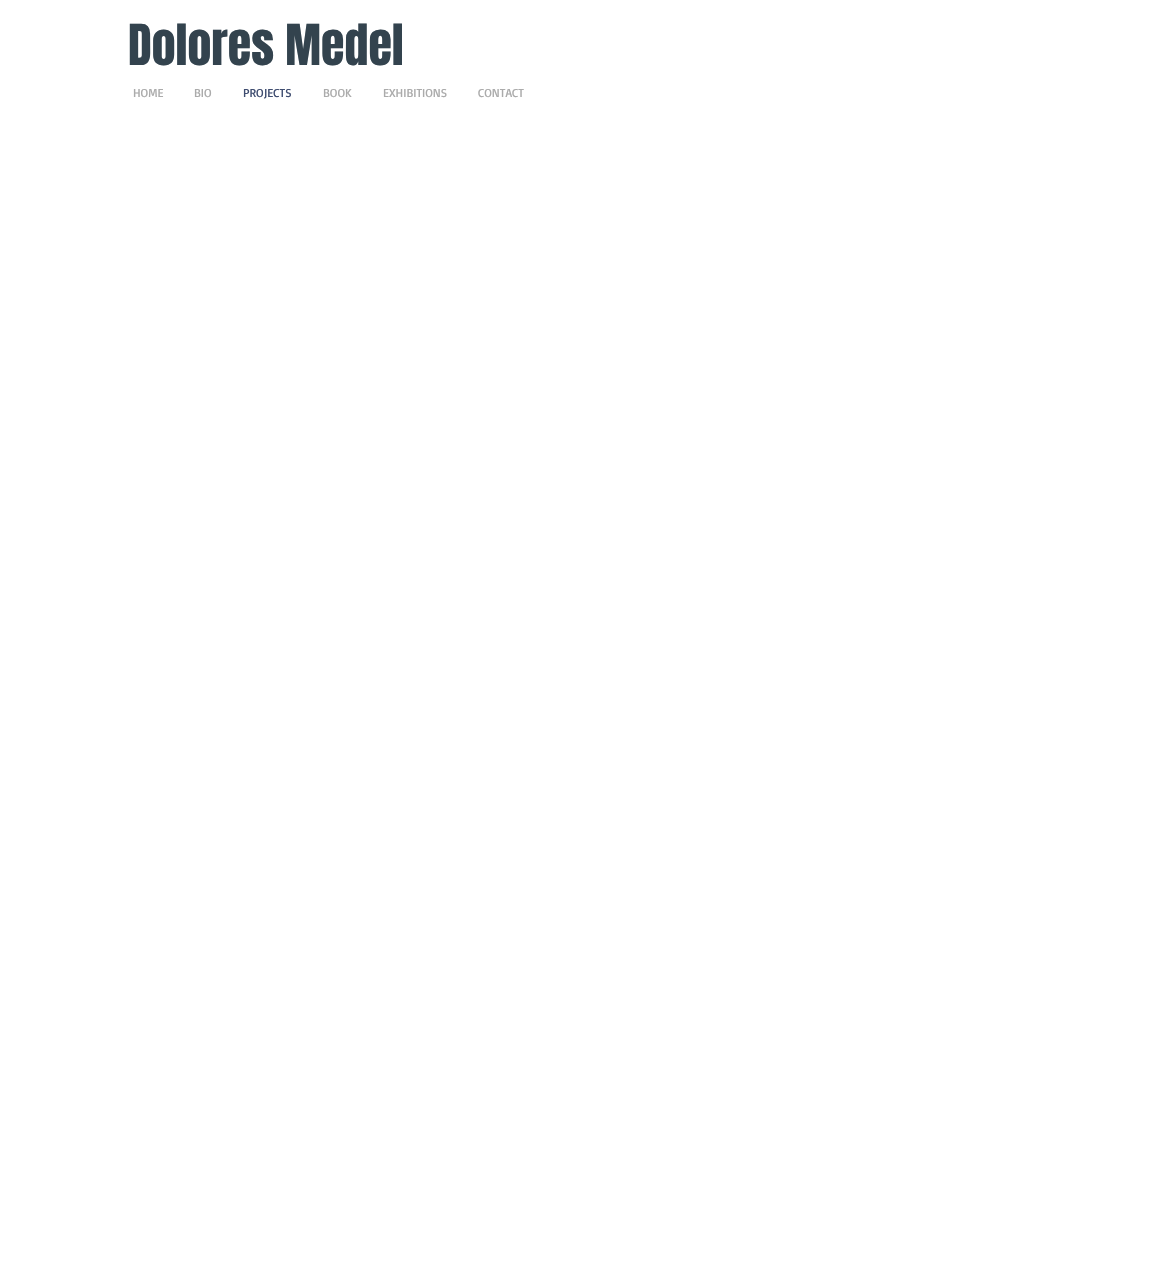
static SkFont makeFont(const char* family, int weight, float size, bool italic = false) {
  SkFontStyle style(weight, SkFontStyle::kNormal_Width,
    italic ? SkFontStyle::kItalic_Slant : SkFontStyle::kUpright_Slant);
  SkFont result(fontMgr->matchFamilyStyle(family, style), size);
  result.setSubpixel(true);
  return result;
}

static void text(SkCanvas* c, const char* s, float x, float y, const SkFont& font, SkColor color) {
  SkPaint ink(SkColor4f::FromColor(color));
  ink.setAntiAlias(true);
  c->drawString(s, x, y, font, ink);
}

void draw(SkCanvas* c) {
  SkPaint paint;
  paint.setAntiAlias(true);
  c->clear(0xffffffff);
  SkFont face1 = makeFont("Anton", 400, 48);
  text(c, "Dolores Medel", 128, 65, face1, 0xff33434e);
  SkFont face2 = makeFont("Basic", 400, 12);
  text(c, "HOME", 133, 97, face2, 0xffababab);
  text(c, "BIO", 194, 97, face2, 0xffababab);
  text(c, "PROJECTS", 243, 97, face2, 0xff3f4d70);
  text(c, "BOOK", 323, 97, face2, 0xffababab);
  text(c, "EXHIBITIONS", 383, 97, face2, 0xffababab);
  text(c, "CONTACT", 478, 97, face2, 0xffababab);
}
